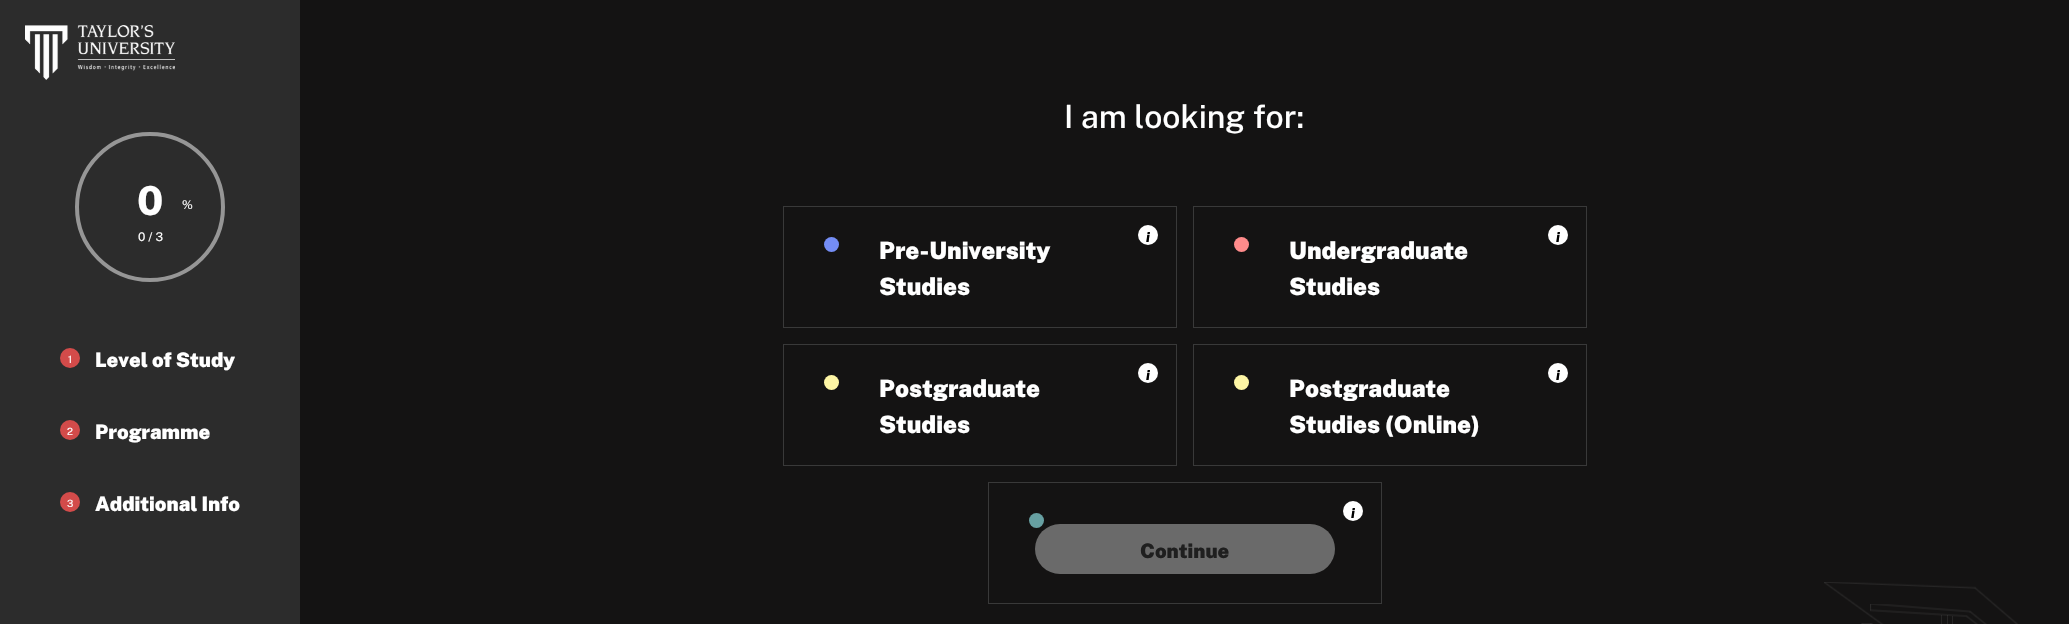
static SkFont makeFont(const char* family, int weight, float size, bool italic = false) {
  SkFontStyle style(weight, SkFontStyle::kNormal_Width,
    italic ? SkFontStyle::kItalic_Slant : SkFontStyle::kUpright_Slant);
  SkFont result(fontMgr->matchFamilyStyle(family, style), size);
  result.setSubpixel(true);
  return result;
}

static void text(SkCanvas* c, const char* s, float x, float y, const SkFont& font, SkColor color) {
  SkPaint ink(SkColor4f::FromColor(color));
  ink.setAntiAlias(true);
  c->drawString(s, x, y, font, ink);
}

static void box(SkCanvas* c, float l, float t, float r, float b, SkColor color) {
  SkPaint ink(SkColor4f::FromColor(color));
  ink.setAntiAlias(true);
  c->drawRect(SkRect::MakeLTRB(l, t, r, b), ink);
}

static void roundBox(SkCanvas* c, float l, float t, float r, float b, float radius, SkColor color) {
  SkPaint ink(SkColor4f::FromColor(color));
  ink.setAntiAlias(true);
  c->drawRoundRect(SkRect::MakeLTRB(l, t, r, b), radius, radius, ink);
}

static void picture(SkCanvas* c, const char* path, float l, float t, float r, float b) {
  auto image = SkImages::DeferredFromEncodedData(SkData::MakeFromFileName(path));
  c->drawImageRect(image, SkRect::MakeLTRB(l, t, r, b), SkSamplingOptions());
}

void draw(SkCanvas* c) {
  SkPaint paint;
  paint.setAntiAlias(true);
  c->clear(0xff141313);
  box(c, 0, 0, 300, 624, 0xff2c2c2c);
  picture(c, "img_01.png", 25, 25, 175, 80);
  paint.setStyle(SkPaint::kStroke_Style);
  paint.setStrokeWidth(4);
  paint.setColor(0xff969696);
  c->drawCircle(150, 207, 73, paint);
  SkFont face1 = makeFont("Public Sans", 800, 40);
  text(c, "0", 137, 215, face1, 0xffffffff);
  SkFont face2 = makeFont("Public Sans", 400, 12);
  text(c, "%", 182, 209, face2, 0xffffffff);
  text(c, "0 / 3", 138, 241, face2, 0xffffffff);
  paint.setStyle(SkPaint::kFill_Style);
  paint.setColor(0xffd34b4a);
  c->drawCircle(70, 358, 10, paint);
  SkFont face3 = makeFont("Public Sans", 400, 10);
  text(c, "1", 68, 363, face3, 0xffffffff);
  SkFont face4 = makeFont("Public Sans", 900, 20);
  text(c, "Level of Study", 95, 367, face4, 0xffffffff);
  c->drawCircle(70, 430, 10, paint);
  text(c, "2", 67, 435, face3, 0xffffffff);
  text(c, "Programme", 95, 439, face4, 0xffffffff);
  c->drawCircle(70, 502, 10, paint);
  text(c, "3", 67, 507, face3, 0xffffffff);
  text(c, "Additional Info", 95, 511, face4, 0xffffffff);
  picture(c, "img_02.png", 1824, 582, 2018, 624);
  SkFont face5 = makeFont("Public Sans", 500, 32);
  text(c, "I am looking for:", 1064, 128, face5, 0xffffffff);
  paint.setStyle(SkPaint::kStroke_Style);
  paint.setStrokeWidth(1);
  paint.setColor(0xff393939);
  c->drawRect(SkRect::MakeLTRB(783.5f, 206.5f, 1176.5f, 327.5f), paint);
  paint.setStyle(SkPaint::kFill_Style);
  paint.setColor(0xff748df5);
  c->drawCircle(831.5f, 244.5f, 7.5f, paint);
  SkFont face6 = makeFont("Public Sans", 900, 24);
  text(c, "Pre-University", 879, 259, face6, 0xffffffff);
  text(c, "Studies", 879, 295, face6, 0xffffffff);
  paint.setColor(0xffffffff);
  c->drawCircle(1148, 235, 10, paint);
  SkFont face7 = makeFont("Public Sans", 800, 14, true);
  text(c, "i", 1146, 242, face7, 0xff000000);
  paint.setStyle(SkPaint::kStroke_Style);
  paint.setColor(0xff393939);
  c->drawRect(SkRect::MakeLTRB(1193.5f, 206.5f, 1586.5f, 327.5f), paint);
  paint.setStyle(SkPaint::kFill_Style);
  paint.setColor(0xffff8b8b);
  c->drawCircle(1241.5f, 244.5f, 7.5f, paint);
  text(c, "Undergraduate", 1289, 259, face6, 0xffffffff);
  text(c, "Studies", 1289, 295, face6, 0xffffffff);
  paint.setColor(0xffffffff);
  c->drawCircle(1558, 235, 10, paint);
  text(c, "i", 1556, 242, face7, 0xff000000);
  paint.setStyle(SkPaint::kStroke_Style);
  paint.setColor(0xff393939);
  c->drawRect(SkRect::MakeLTRB(783.5f, 344.5f, 1176.5f, 465.5f), paint);
  paint.setStyle(SkPaint::kFill_Style);
  paint.setColor(0xfffef6a5);
  c->drawCircle(831.5f, 382.5f, 7.5f, paint);
  text(c, "Postgraduate", 879, 397, face6, 0xffffffff);
  text(c, "Studies", 879, 433, face6, 0xffffffff);
  paint.setColor(0xffffffff);
  c->drawCircle(1148, 373, 10, paint);
  text(c, "i", 1146, 380, face7, 0xff000000);
  paint.setStyle(SkPaint::kStroke_Style);
  paint.setColor(0xff393939);
  c->drawRect(SkRect::MakeLTRB(1193.5f, 344.5f, 1586.5f, 465.5f), paint);
  paint.setStyle(SkPaint::kFill_Style);
  paint.setColor(0xfffef6a5);
  c->drawCircle(1241.5f, 382.5f, 7.5f, paint);
  text(c, "Postgraduate", 1289, 397, face6, 0xffffffff);
  text(c, "Studies (Online)", 1289, 433, face6, 0xffffffff);
  paint.setColor(0xffffffff);
  c->drawCircle(1558, 373, 10, paint);
  text(c, "i", 1556, 380, face7, 0xff000000);
  paint.setStyle(SkPaint::kStroke_Style);
  paint.setColor(0xff393939);
  c->drawRect(SkRect::MakeLTRB(988.5f, 482.5f, 1381.5f, 603.5f), paint);
  paint.setStyle(SkPaint::kFill_Style);
  paint.setColor(0xff67a0a2);
  c->drawCircle(1036.5f, 520.5f, 7.5f, paint);
  paint.setColor(0xffffffff);
  c->drawCircle(1353, 511, 10, paint);
  text(c, "i", 1351, 518, face7, 0xff000000);
  roundBox(c, 1035, 524, 1335, 574, 25, 0xff6a6a6a);
  text(c, "Continue", 1140, 558, face4, 0xff1f1f1f);
}
